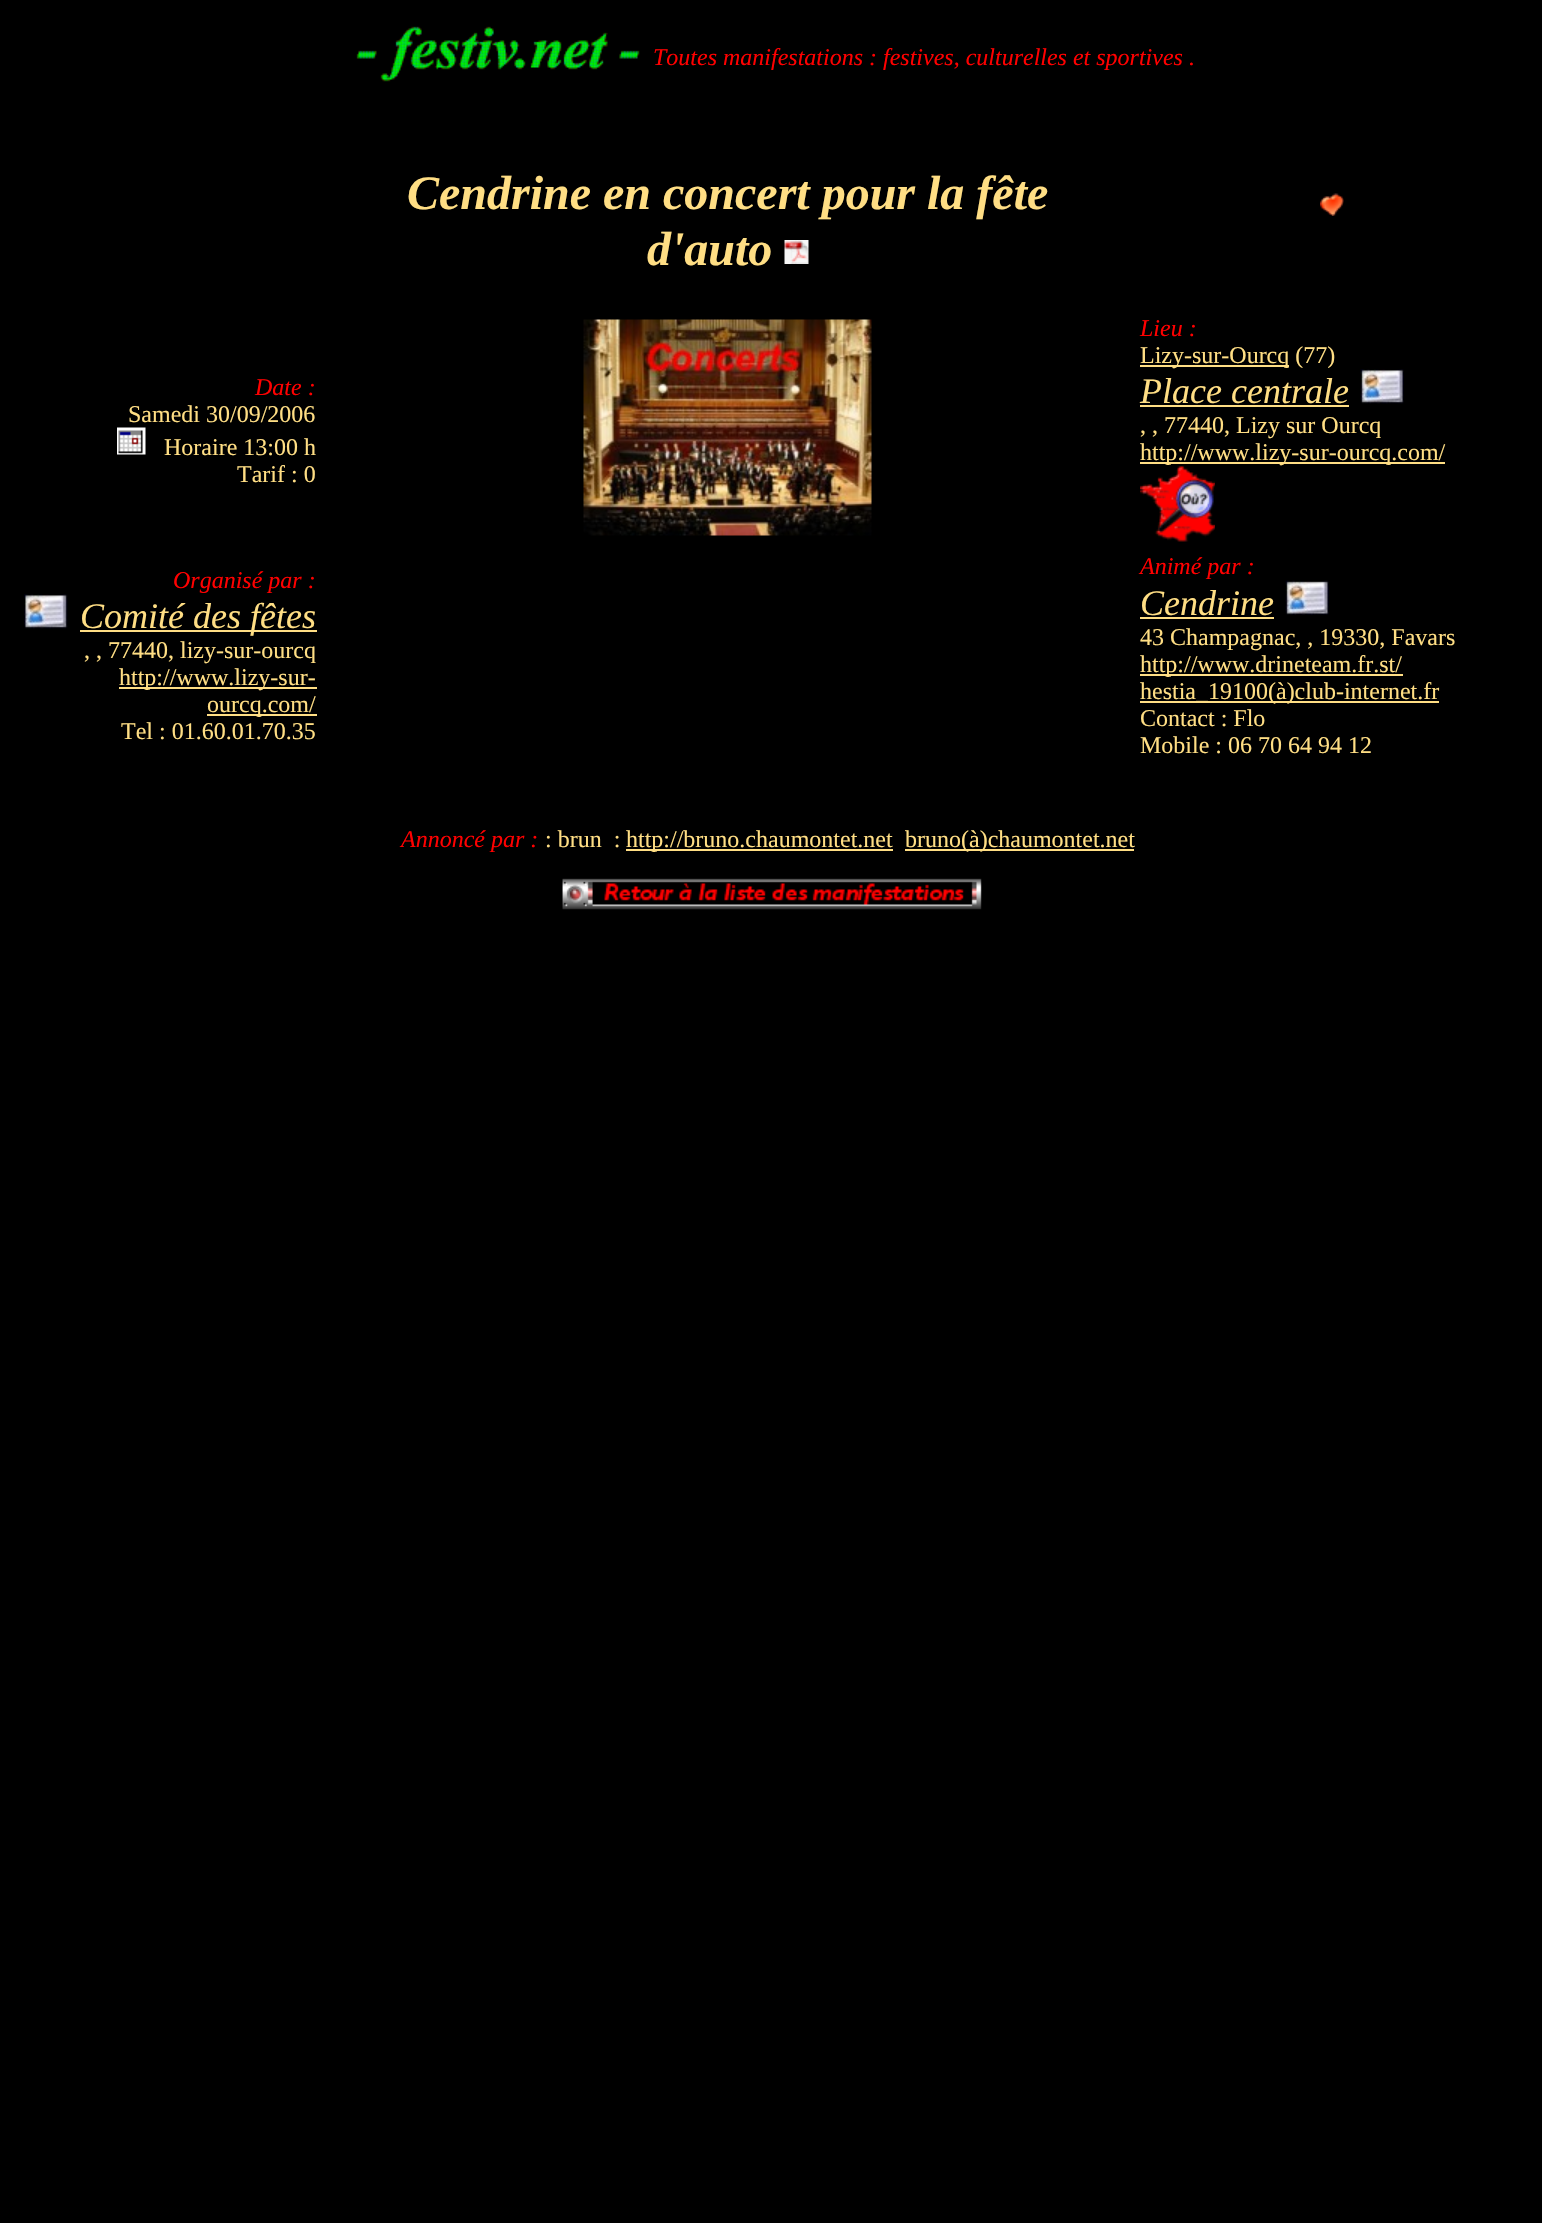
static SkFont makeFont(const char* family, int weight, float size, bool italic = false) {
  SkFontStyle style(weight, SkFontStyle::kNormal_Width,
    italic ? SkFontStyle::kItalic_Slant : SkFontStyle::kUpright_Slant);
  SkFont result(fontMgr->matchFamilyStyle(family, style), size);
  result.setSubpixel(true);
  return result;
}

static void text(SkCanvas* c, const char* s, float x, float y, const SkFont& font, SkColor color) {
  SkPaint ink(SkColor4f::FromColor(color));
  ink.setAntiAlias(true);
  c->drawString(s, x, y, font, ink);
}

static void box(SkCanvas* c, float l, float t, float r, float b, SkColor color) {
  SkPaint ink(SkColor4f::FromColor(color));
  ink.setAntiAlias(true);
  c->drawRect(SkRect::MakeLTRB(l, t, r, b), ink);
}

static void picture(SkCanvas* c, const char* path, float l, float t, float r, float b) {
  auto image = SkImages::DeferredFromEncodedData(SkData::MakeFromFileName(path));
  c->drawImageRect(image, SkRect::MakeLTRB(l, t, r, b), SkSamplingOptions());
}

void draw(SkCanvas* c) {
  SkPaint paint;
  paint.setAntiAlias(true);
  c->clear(0xff000000);
  picture(c, "img_01.png", 356, 26, 640, 82);
  SkFont face1 = makeFont("Liberation Serif", 400, 24, true);
  text(c, "Toutes manifestations : festives, culturelles et sportives .", 653, 65, face1, 0xffff0000);
  SkFont face2 = makeFont("Liberation Serif", 700, 48, true);
  text(c, "Cendrine en concert pour la fête", 407, 209, face2, 0xffffde84);
  text(c, "d'auto", 647, 265, face2, 0xffffde84);
  picture(c, "img_02.png", 784, 240, 809, 264);
  picture(c, "img_03.png", 1320, 193, 1344, 216);
  text(c, "Date :", 255, 395, face1, 0xffff0000);
  SkFont face3 = makeFont("Liberation Serif", 400, 24);
  text(c, "Samedi 30/09/2006", 128, 422, face3, 0xffffde84);
  picture(c, "img_04.png", 117, 427, 146, 455);
  text(c, "Horaire 13:00 h", 164, 455, face3, 0xffffde84);
  text(c, "Tarif : 0", 237, 482, face3, 0xffffde84);
  picture(c, "img_05.png", 583, 319, 872, 536);
  text(c, "Lieu :", 1140, 336, face1, 0xffff0000);
  box(c, 1140, 365, 1289, 367, 0xffffde84);
  text(c, "Lizy-sur-Ourcq (77)", 1140, 363, face3, 0xffffde84);
  SkFont face4 = makeFont("Liberation Serif", 400, 36, true);
  text(c, "Place centrale", 1140, 403, face4, 0xffffde84);
  box(c, 1140, 405, 1349, 407, 0xffffde84);
  picture(c, "img_06.png", 1360, 369, 1404, 404);
  text(c, ", , 77440, Lizy sur Ourcq", 1140, 433, face3, 0xffffde84);
  box(c, 1140, 462, 1445, 464, 0xffffde84);
  text(c, "http://www.lizy-sur-ourcq.com/", 1140, 460, face3, 0xffffde84);
  picture(c, "img_07.png", 1140, 466, 1215, 542);
  text(c, "Organisé par :", 173, 588, face1, 0xffff0000);
  picture(c, "img_08.png", 24, 594, 68, 629);
  box(c, 80, 630, 317, 632, 0xffffde84);
  text(c, "Comité des fêtes", 80, 628, face4, 0xffffde84);
  text(c, ", , 77440, lizy-sur-ourcq", 84, 658, face3, 0xffffde84);
  box(c, 119, 687, 317, 689, 0xffffde84);
  text(c, "http://www.lizy-sur-", 119, 685, face3, 0xffffde84);
  box(c, 207, 714, 317, 716, 0xffffde84);
  text(c, "ourcq.com/", 207, 712, face3, 0xffffde84);
  text(c, "Tel : 01.60.01.70.35", 121, 739, face3, 0xffffde84);
  text(c, "Animé par :", 1140, 574, face1, 0xffff0000);
  text(c, "Cendrine", 1140, 615, face4, 0xffffde84);
  box(c, 1140, 617, 1274, 619, 0xffffde84);
  picture(c, "img_09.png", 1285, 580, 1329, 615);
  text(c, "43 Champagnac, , 19330, Favars", 1140, 645, face3, 0xffffde84);
  box(c, 1140, 674, 1403, 676, 0xffffde84);
  text(c, "http://www.drineteam.fr.st/", 1140, 672, face3, 0xffffde84);
  box(c, 1140, 701, 1439, 703, 0xffffde84);
  text(c, "hestia_19100(à)club-internet.fr", 1140, 699, face3, 0xffffde84);
  text(c, "Contact : Flo", 1140, 726, face3, 0xffffde84);
  text(c, "Mobile : 06 70 64 94 12", 1140, 753, face3, 0xffffde84);
  text(c, "Annoncé par :", 401, 847, face1, 0xffff0000);
  text(c, ": brun  :", 545, 847, face3, 0xffffde84);
  box(c, 626, 849, 893, 851, 0xffffde84);
  text(c, "http://bruno.chaumontet.net", 626, 847, face3, 0xffffde84);
  box(c, 905, 849, 1134, 851, 0xffffde84);
  text(c, "bruno(à)chaumontet.net", 905, 847, face3, 0xffffde84);
  picture(c, "img_10.png", 562, 878, 982, 910);
}
